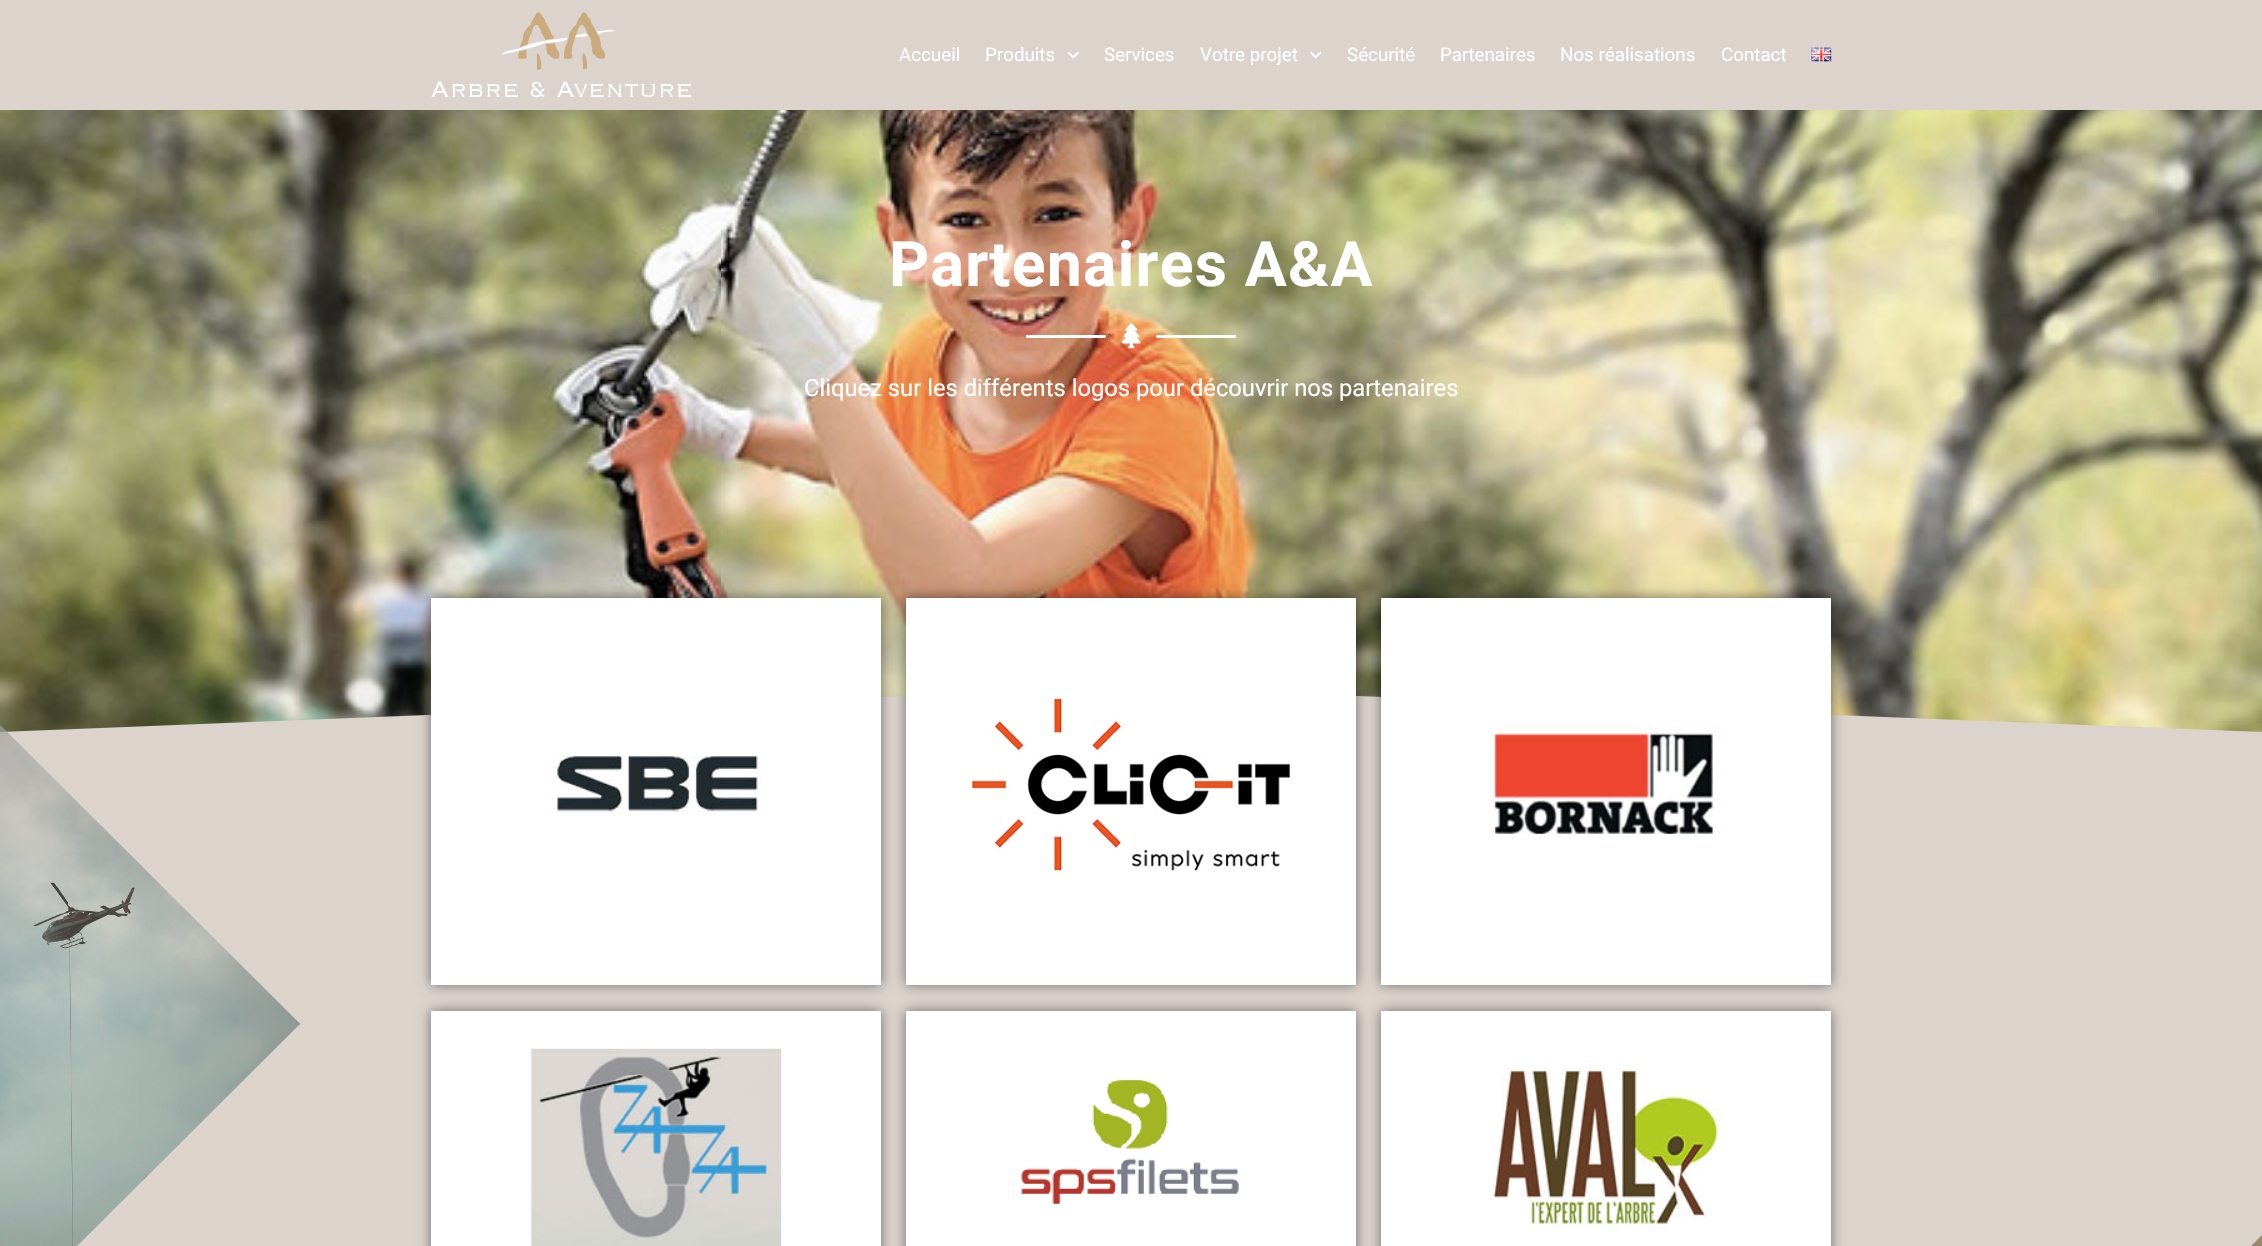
static SkFont makeFont(const char* family, int weight, float size, bool italic = false) {
  SkFontStyle style(weight, SkFontStyle::kNormal_Width,
    italic ? SkFontStyle::kItalic_Slant : SkFontStyle::kUpright_Slant);
  SkFont result(fontMgr->matchFamilyStyle(family, style), size);
  result.setSubpixel(true);
  return result;
}

static void text(SkCanvas* c, const char* s, float x, float y, const SkFont& font, SkColor color) {
  SkPaint ink(SkColor4f::FromColor(color));
  ink.setAntiAlias(true);
  c->drawString(s, x, y, font, ink);
}

static void spacedText(SkCanvas* c, const char* s, float x, float y, const SkFont& font, const SkPaint& ink, float letter, float word) {
  std::vector<SkGlyphID> glyphs(font.countText(s, strlen(s), SkTextEncoding::kUTF8));
  std::vector<float> xs(glyphs.size());
  font.textToGlyphs(s, strlen(s), SkTextEncoding::kUTF8, glyphs);
  font.getXPos(glyphs, xs, x);
  float extra = 0;
  for (size_t i = 0; i < glyphs.size(); i++) {
    xs[i] += extra;
    extra += letter + word * (glyphs[i] == font.unicharToGlyph(' '));
  }
  c->drawTextBlob(SkTextBlob::MakeFromPosHGlyphs(glyphs, xs, y, font), 0, 0, ink);
}

static void box(SkCanvas* c, float l, float t, float r, float b, SkColor color) {
  SkPaint ink(SkColor4f::FromColor(color));
  ink.setAntiAlias(true);
  c->drawRect(SkRect::MakeLTRB(l, t, r, b), ink);
}

static void picture(SkCanvas* c, const char* path, float l, float t, float r, float b) {
  auto image = SkImages::DeferredFromEncodedData(SkData::MakeFromFileName(path));
  c->drawImageRect(image, SkRect::MakeLTRB(l, t, r, b), SkSamplingOptions());
}

void draw(SkCanvas* c) {
  SkPaint paint;
  paint.setAntiAlias(true);
  c->clear(0xffdcd3cc);
  picture(c, "img_01.png", 431, 12, 692, 98);
  SkFont face1 = makeFont("Roboto", 400, 18.75f);
  text(c, "Accueil", 899, 61, face1, 0xffffffff);
  text(c, "Produits", 985, 61, face1, 0xffffffff);
  picture(c, "img_02.png", 1067, 51, 1079, 59);
  text(c, "Services", 1104, 61, face1, 0xffffffff);
  text(c, "Votre projet", 1200, 61, face1, 0xffffffff);
  picture(c, "img_03.png", 1310, 51, 1322, 59);
  text(c, "Sécurité", 1347, 61, face1, 0xffffffff);
  text(c, "Partenaires", 1440, 61, face1, 0xffffffff);
  text(c, "Nos réalisations", 1560, 61, face1, 0xffffffff);
  text(c, "Contact", 1721, 61, face1, 0xffffffff);
  picture(c, "img_04.png", 1811, 47, 1832, 62);
  picture(c, "img_05.png", 0, 110, 2262, 732);
  SkFont face2 = makeFont("Roboto", 700, 62.5f);
  paint.setColor(0xffffffff);
  spacedText(c, "Partenaires A&A", 889, 286, face2, paint, 1.25f, 0);
  box(c, 1026, 335, 1106, 338, 0xffffffff);
  picture(c, "img_06.png", 1121, 323, 1141, 349);
  box(c, 1156, 335, 1236, 338, 0xffffffff);
  SkFont face3 = makeFont("Roboto", 400, 23.75f);
  text(c, "Cliquez sur les différents logos pour découvrir nos partenaires", 804, 396, face3, 0xffffffff);
  paint.setColor(0xffdcd3cc);
  c->drawPath(SkPathBuilder().moveTo(1131, 687).lineTo(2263, 732).lineTo(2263, 735).lineTo(-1, 735).lineTo(-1, 732).close().detach(), paint);
  picture(c, "img_07.png", 0, 725, 300, 1246);
  paint.setColor(0x80000000);
  paint.setMaskFilter(SkMaskFilter::MakeBlur(kNormal_SkBlurStyle, 6));
  c->drawRect(SkRect::MakeLTRB(431, 598, 881, 985), paint);
  paint.setMaskFilter(nullptr);
  box(c, 431, 598, 881, 985, 0xffffffff);
  picture(c, "img_08.png", 551, 755, 761, 815);
  paint.setMaskFilter(SkMaskFilter::MakeBlur(kNormal_SkBlurStyle, 6));
  c->drawRect(SkRect::MakeLTRB(906, 598, 1356, 985), paint);
  paint.setMaskFilter(nullptr);
  box(c, 906, 598, 1356, 985, 0xffffffff);
  picture(c, "img_09.png", 971, 698, 1291, 871);
  paint.setMaskFilter(SkMaskFilter::MakeBlur(kNormal_SkBlurStyle, 6));
  c->drawRect(SkRect::MakeLTRB(1381, 598, 1831, 985), paint);
  paint.setMaskFilter(nullptr);
  box(c, 1381, 598, 1831, 985, 0xffffffff);
  picture(c, "img_10.png", 1491, 725, 1721, 835);
  paint.setMaskFilter(SkMaskFilter::MakeBlur(kNormal_SkBlurStyle, 6));
  c->drawRect(SkRect::MakeLTRB(431, 1011, 881, 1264), paint);
  paint.setMaskFilter(nullptr);
  box(c, 431, 1011, 881, 1246, 0xffffffff);
  picture(c, "img_11.png", 531, 1048, 782, 1246);
  paint.setMaskFilter(SkMaskFilter::MakeBlur(kNormal_SkBlurStyle, 6));
  c->drawRect(SkRect::MakeLTRB(906, 1011, 1356, 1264), paint);
  paint.setMaskFilter(nullptr);
  box(c, 906, 1011, 1356, 1246, 0xffffffff);
  picture(c, "img_12.png", 1021, 1079, 1239, 1204);
  paint.setMaskFilter(SkMaskFilter::MakeBlur(kNormal_SkBlurStyle, 6));
  c->drawRect(SkRect::MakeLTRB(1381, 1011, 1831, 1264), paint);
  paint.setMaskFilter(nullptr);
  box(c, 1381, 1011, 1831, 1246, 0xffffffff);
  picture(c, "img_13.png", 1491, 1069, 1722, 1229);
  picture(c, "img_14.png", 2251, 1235, 2262, 1246);
}
